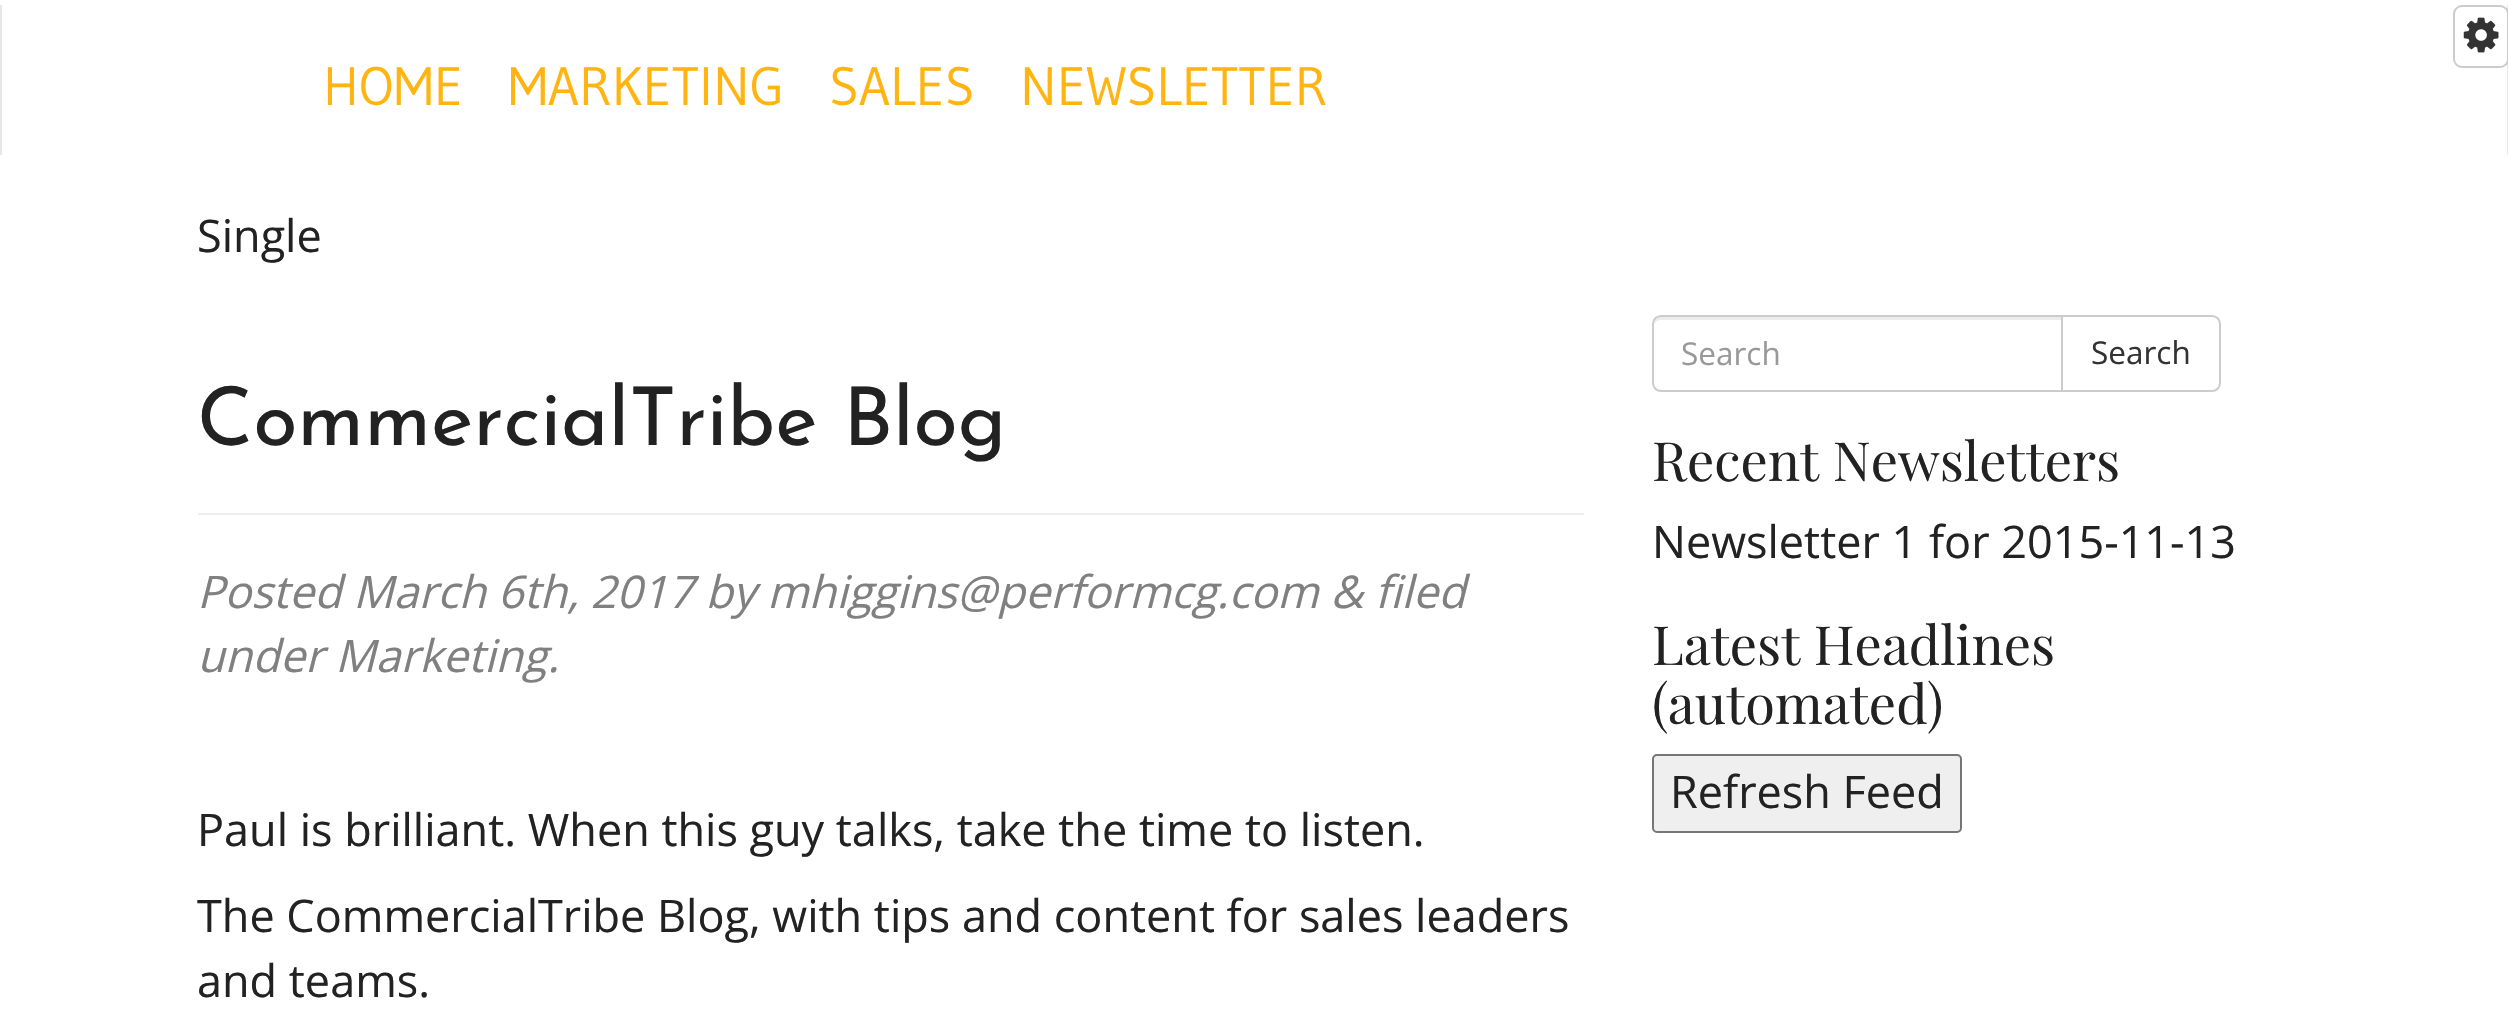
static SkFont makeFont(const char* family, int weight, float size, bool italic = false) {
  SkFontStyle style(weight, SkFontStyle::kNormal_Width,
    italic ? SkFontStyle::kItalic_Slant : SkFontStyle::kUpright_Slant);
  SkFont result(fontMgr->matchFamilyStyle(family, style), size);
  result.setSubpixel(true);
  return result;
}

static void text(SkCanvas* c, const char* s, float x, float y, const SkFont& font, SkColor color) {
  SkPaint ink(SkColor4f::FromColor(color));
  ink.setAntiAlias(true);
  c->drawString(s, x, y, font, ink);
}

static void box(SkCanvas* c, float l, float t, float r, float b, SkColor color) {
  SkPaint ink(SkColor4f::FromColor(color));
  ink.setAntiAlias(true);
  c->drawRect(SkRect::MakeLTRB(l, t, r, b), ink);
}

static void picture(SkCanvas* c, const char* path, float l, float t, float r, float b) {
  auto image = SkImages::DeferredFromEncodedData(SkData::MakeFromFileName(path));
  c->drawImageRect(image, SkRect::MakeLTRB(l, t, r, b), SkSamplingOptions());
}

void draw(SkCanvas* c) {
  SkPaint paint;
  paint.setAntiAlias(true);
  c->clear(0xffffffff);
  box(c, 2507, 5, 2508, 155, 0xffe7e7e7);
  paint.setColor(0xffffffff);
  c->drawRoundRect(SkRect::MakeLTRB(2454, 6, 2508, 67), 8, 8, paint);
  paint.setStyle(SkPaint::kStroke_Style);
  paint.setStrokeWidth(2);
  paint.setColor(0xffcccccc);
  c->drawRoundRect(SkRect::MakeLTRB(2454, 6, 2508, 67), 8, 8, paint);
  picture(c, "img_01.png", 2463, 17, 2499, 53);
  box(c, 0, 5, 2, 155, 0xffe7e7e7);
  SkFont face1 = makeFont("Gudea", 400, 54);
  text(c, "HOME", 323, 105, face1, 0xffffb411);
  text(c, "MARKETING", 508, 105, face1, 0xffffb411);
  text(c, "SALES", 829, 105, face1, 0xffffb411);
  text(c, "NEWSLETTER", 1020, 105, face1, 0xffffb411);
  SkFont face2 = makeFont("Open Sans", 400, 45);
  text(c, "Single", 197, 252, face2, 0xff222222);
  box(c, 198, 513, 1584, 515, 0xffeeeeee);
  SkFont face3 = makeFont("Josefin Sans", 100, 81);
  text(c, "CommercialTribe Blog", 197, 445, face3, 0xff222222);
  SkFont face4 = makeFont("Open Sans", 400, 45, true);
  text(c, "Posted March 6th, 2017 by mhiggins@performcg.com & filed", 197, 608, face4, 0xff808080);
  text(c, "under Marketing.", 197, 672, face4, 0xff808080);
  text(c, "Paul is brilliant. When this guy talks, take the time to listen.", 197, 846, face2, 0xff222222);
  text(c, "The CommercialTribe Blog, with tips and content for sales leaders", 197, 932, face2, 0xff222222);
  text(c, "and teams.", 197, 997, face2, 0xff222222);
  c->drawPath(SkPathBuilder().moveTo(2062, 316).lineTo(2212, 316).cubicTo(2216.5f, 316, 2220, 319.5f, 2220, 324).lineTo(2220, 383).cubicTo(2220, 387.5f, 2216.5f, 391, 2212, 391).lineTo(2062, 391).close().detach(), paint);
  paint.setStyle(SkPaint::kFill_Style);
  paint.setColor(0xffffffff);
  c->drawPath(SkPathBuilder().moveTo(1661, 315).lineTo(2063, 315).lineTo(2063, 392).lineTo(1661, 392).cubicTo(1656, 392, 1652, 388, 1652, 383).lineTo(1652, 324).cubicTo(1652, 319, 1656, 315, 1661, 315).close().detach(), paint);
  paint.setColor(0xffececec);
  c->drawPath(SkPathBuilder().moveTo(1660, 320).lineTo(2061, 320).lineTo(2061, 317).lineTo(1661, 317).cubicTo(1656, 317, 1654, 322, 1654, 326).cubicTo(1654, 323, 1657, 320, 1660, 320).close().detach(), paint);
  paint.setStyle(SkPaint::kStroke_Style);
  paint.setColor(0xffcccccc);
  c->drawPath(SkPathBuilder().moveTo(1661, 316).lineTo(2062, 316).lineTo(2062, 391).lineTo(1661, 391).cubicTo(1656.5f, 391, 1653, 387.5f, 1653, 383).lineTo(1653, 324).cubicTo(1653, 319.5f, 1656.5f, 316, 1661, 316).close().detach(), paint);
  SkFont face5 = makeFont("Open Sans", 400, 31.5f);
  text(c, "Search", 1681, 365, face5, 0xff999999);
  text(c, "Search", 2091, 364, face5, 0xff333333);
  SkFont face6 = makeFont("Playfair Display", 400, 54);
  text(c, "Recent Newsletters", 1652, 481, face6, 0xff222222);
  text(c, "Newsletter 1 for 2015-11-13", 1652, 558, face2, 0xff222222);
  text(c, "Latest Headlines", 1652, 665, face6, 0xff222222);
  text(c, "(automated)", 1652, 724, face6, 0xff222222);
  paint.setStyle(SkPaint::kFill_Style);
  paint.setColor(0xffefefef);
  c->drawRoundRect(SkRect::MakeLTRB(1653, 755, 1961, 832), 4, 4, paint);
  paint.setStyle(SkPaint::kStroke_Style);
  paint.setColor(0xff767676);
  c->drawRoundRect(SkRect::MakeLTRB(1653, 755, 1961, 832), 4, 4, paint);
  text(c, "Refresh Feed", 1670, 808, face2, 0xff222222);
}
